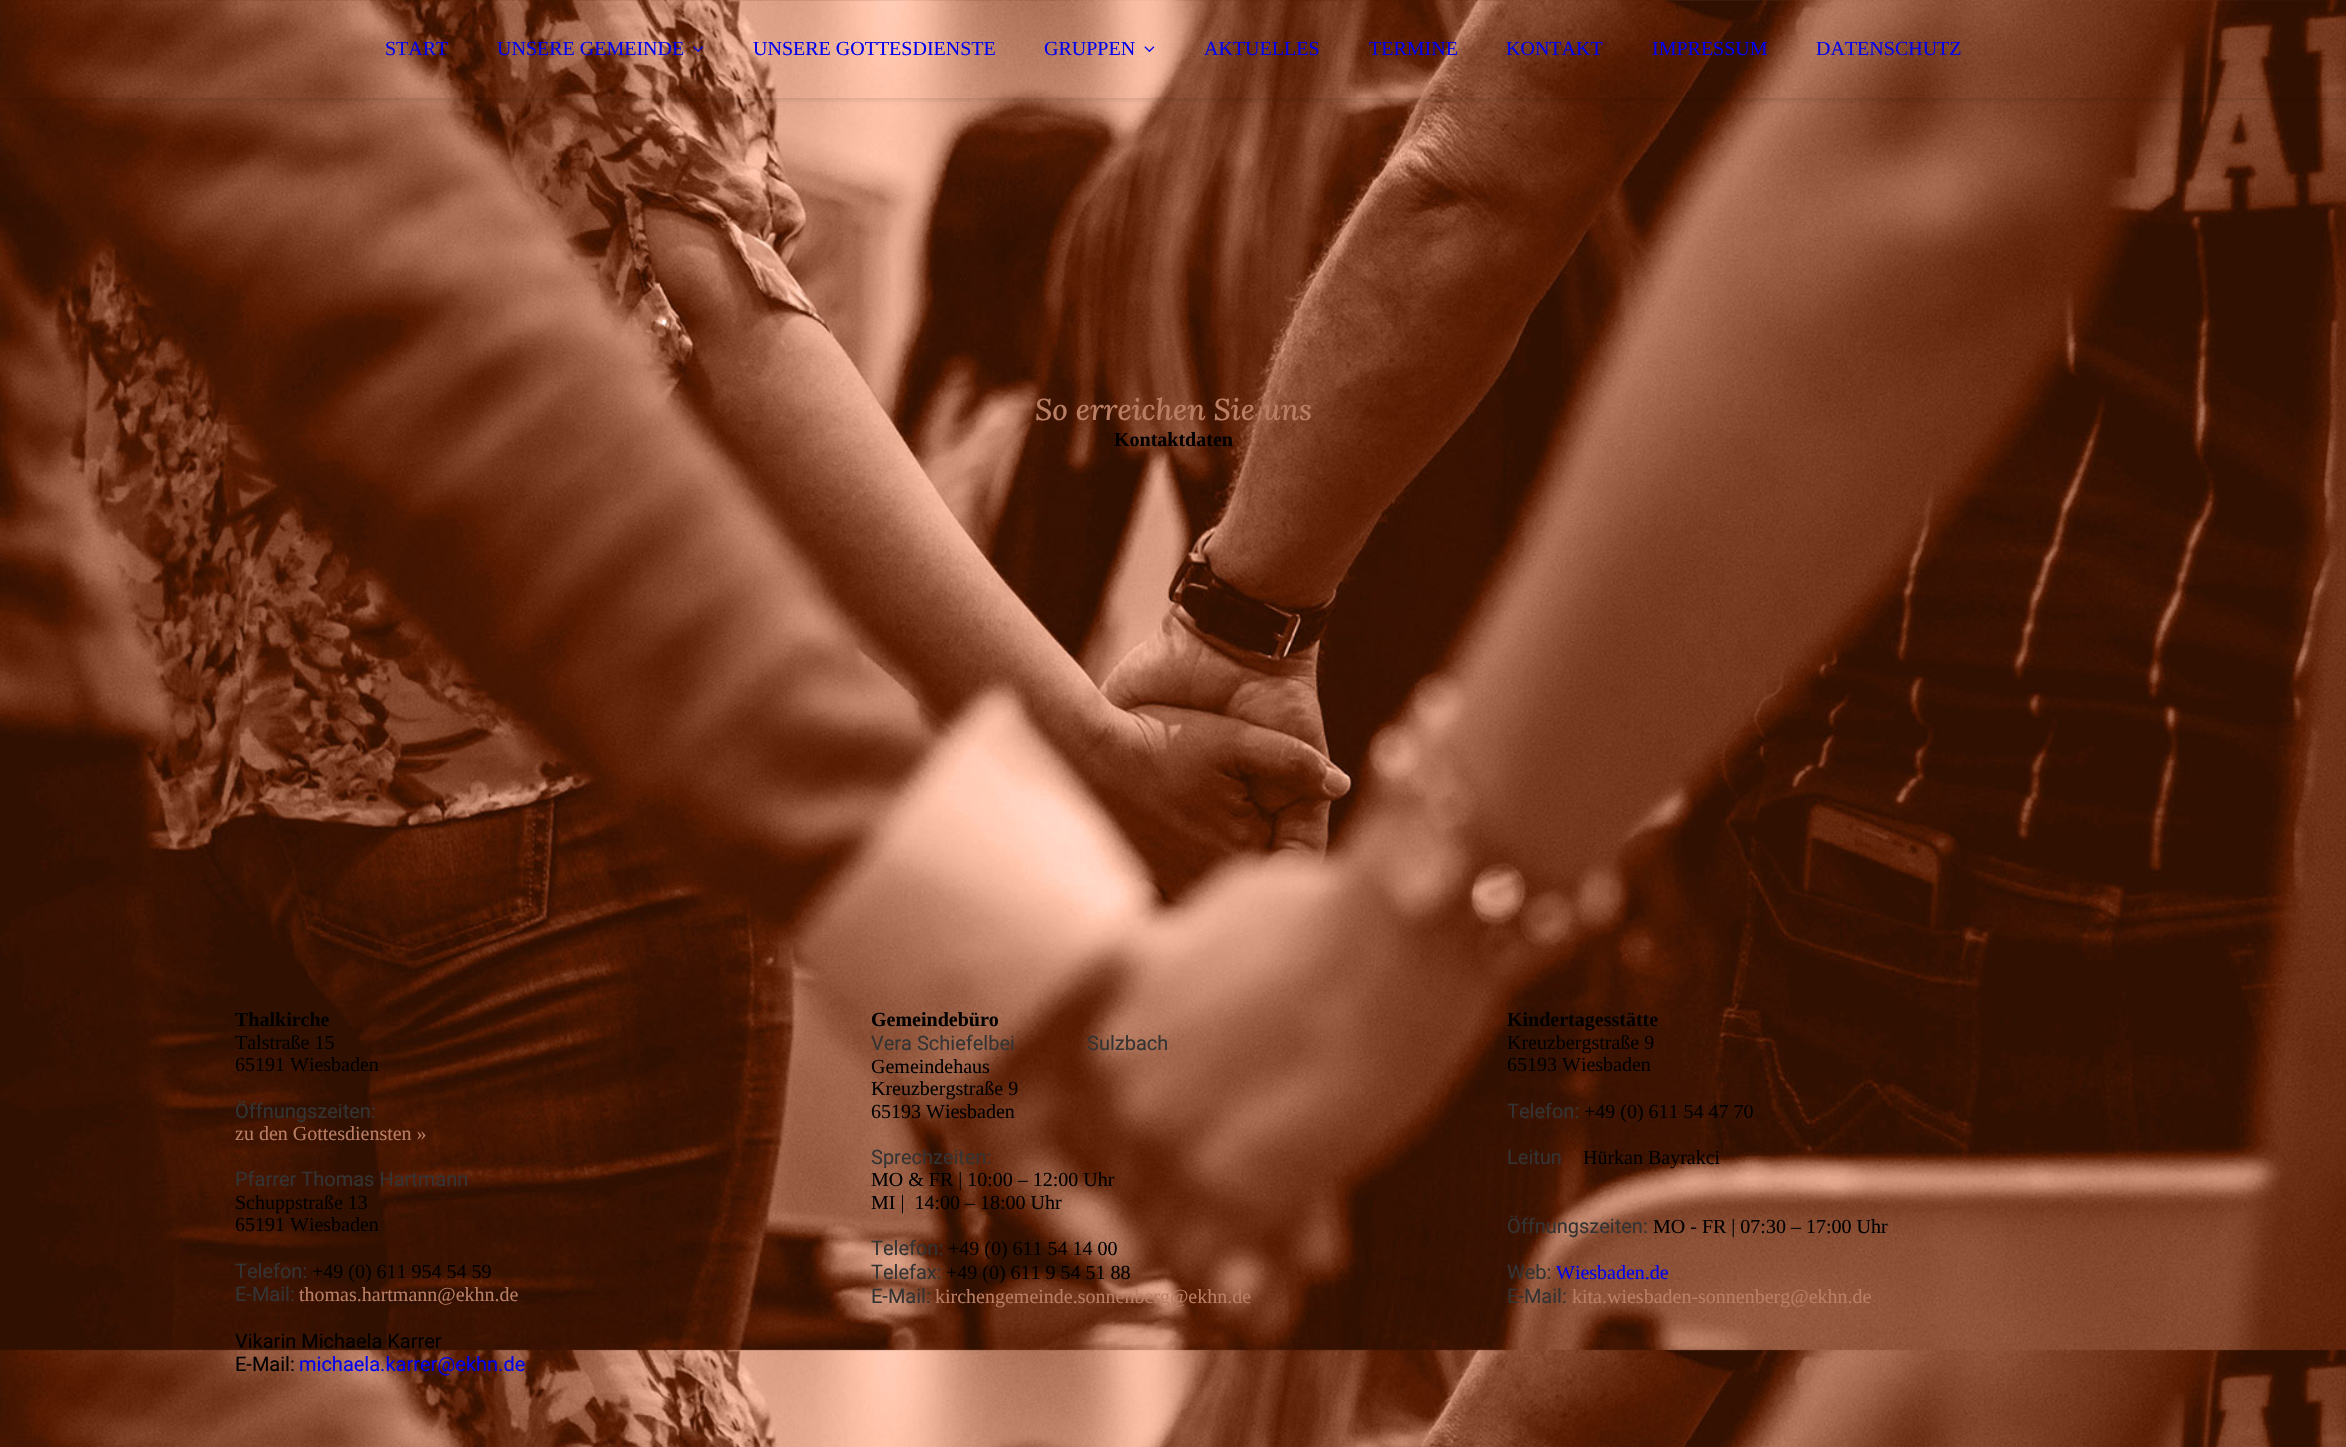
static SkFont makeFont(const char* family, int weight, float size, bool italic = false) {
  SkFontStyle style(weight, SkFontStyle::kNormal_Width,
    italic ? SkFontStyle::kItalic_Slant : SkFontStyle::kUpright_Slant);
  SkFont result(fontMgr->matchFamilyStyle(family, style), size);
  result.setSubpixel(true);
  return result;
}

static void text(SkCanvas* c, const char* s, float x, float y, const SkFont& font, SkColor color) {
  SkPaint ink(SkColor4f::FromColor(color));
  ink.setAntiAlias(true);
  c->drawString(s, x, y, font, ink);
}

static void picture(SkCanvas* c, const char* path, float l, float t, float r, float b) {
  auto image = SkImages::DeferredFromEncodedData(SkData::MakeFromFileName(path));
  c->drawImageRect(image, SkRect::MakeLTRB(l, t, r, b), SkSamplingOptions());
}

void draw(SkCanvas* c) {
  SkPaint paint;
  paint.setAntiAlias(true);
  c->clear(0xffffffff);
  picture(c, "img_01.png", 0, 0, 2346, 1447);
  c->save();
  c->clipPath(SkPathBuilder(SkPathFillType::kEvenOdd).moveTo(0, 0).lineTo(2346, 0).lineTo(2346, 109).lineTo(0, 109).close().moveTo(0, 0).lineTo(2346, 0).lineTo(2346, 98).lineTo(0, 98).close().detach(), true);
  paint.setColor(0x1f000000);
  paint.setMaskFilter(SkMaskFilter::MakeBlur(kNormal_SkBlurStyle, 2.5f));
  c->drawRect(SkRect::MakeLTRB(0, 3, 2346, 100), paint);
  paint.setMaskFilter(nullptr);
  c->restore();
  SkFont face1 = makeFont("Liberation Serif", 400, 20);
  text(c, "START", 385, 55, face1, 0xff0000ee);
  text(c, "UNSERE GEMEINDE", 497, 55, face1, 0xff0000ee);
  picture(c, "img_02.png", 693, 46, 703, 52);
  text(c, "UNSERE GOTTESDIENSTE", 753, 55, face1, 0xff0000ee);
  text(c, "GRUPPEN", 1044, 55, face1, 0xff0000ee);
  picture(c, "img_03.png", 1144, 46, 1155, 52);
  text(c, "AKTUELLES", 1204, 55, face1, 0xff0000ee);
  text(c, "TERMINE", 1369, 55, face1, 0xff0000ee);
  text(c, "KONTAKT", 1506, 55, face1, 0xff0000ee);
  text(c, "IMPRESSUM", 1652, 55, face1, 0xff0000ee);
  text(c, "DATENSCHUTZ", 1816, 55, face1, 0xff0000ee);
  SkFont face2 = makeFont("Lora", 500, 30, true);
  text(c, "So erreichen Sie uns", 1035, 420, face2, 0xffb97d63);
  SkFont face3 = makeFont("Liberation Serif", 700, 20);
  text(c, "Kontaktdaten", 1114, 446, face3, 0xff000000);
  text(c, "Thalkirche", 235, 1026, face3, 0xff000000);
  text(c, "Talstraße 15", 235, 1049, face1, 0xff000000);
  text(c, "65191 Wiesbaden", 235, 1071, face1, 0xff000000);
  SkFont face4 = makeFont("Roboto", 400, 20);
  text(c, "Öffnungszeiten:", 235, 1118, face4, 0xff333333);
  text(c, "zu den Gottesdiensten »", 235, 1140, face1, 0xffb97d63);
  text(c, "Pfarrer Thomas Hartmann", 235, 1186, face4, 0xff333333);
  text(c, "Schuppstraße 13", 235, 1209, face1, 0xff000000);
  text(c, "65191 Wiesbaden", 235, 1231, face1, 0xff000000);
  text(c, "Telefon:", 235, 1278, face4, 0xff333333);
  text(c, "+49 (0) 611 954 54 59", 312, 1278, face1, 0xff000000);
  text(c, "E-Mail:", 235, 1301, face4, 0xff333333);
  text(c, "thomas.hartmann@ekhn.de", 299, 1301, face1, 0xffb97d63);
  text(c, "Vikarin Michaela Karrer", 235, 1348, face4, 0xff000000);
  text(c, "E-Mail:", 235, 1371, face4, 0xff000000);
  text(c, "michaela.karrer@ekhn.de", 299, 1371, face4, 0xff0000ee);
  text(c, "Gemeindebüro", 871, 1026, face3, 0xff000000);
  text(c, "Vera Schiefelbei", 871, 1050, face4, 0xff333333);
  text(c, "Sulzbach", 1087, 1050, face4, 0xff333333);
  text(c, "Gemeindehaus", 871, 1073, face1, 0xff000000);
  text(c, "Kreuzbergstraße 9", 871, 1095, face1, 0xff000000);
  text(c, "65193 Wiesbaden", 871, 1118, face1, 0xff000000);
  text(c, "Sprechzeiten:", 871, 1164, face4, 0xff333333);
  text(c, "MO & FR | 10:00 – 12:00 Uhr", 871, 1186, face1, 0xff000000);
  text(c, "MI |  14:00 – 18:00 Uhr", 871, 1209, face1, 0xff000000);
  text(c, "Telefon:", 871, 1255, face4, 0xff333333);
  text(c, "+49 (0) 611 54 14 00", 948, 1255, face1, 0xff000000);
  text(c, "Telefax:", 871, 1279, face4, 0xff333333);
  text(c, "+49 (0) 611 9 54 51 88", 946, 1279, face1, 0xff000000);
  text(c, "E-Mail:", 871, 1303, face4, 0xff333333);
  text(c, "kirchengemeinde.sonnenberg@ekhn.de", 935, 1303, face1, 0xffb97d63);
  text(c, "Kindertagesstätte", 1507, 1026, face3, 0xff000000);
  text(c, "Kreuzbergstraße 9", 1507, 1049, face1, 0xff000000);
  text(c, "65193 Wiesbaden", 1507, 1071, face1, 0xff000000);
  text(c, "Telefon:", 1507, 1118, face4, 0xff333333);
  text(c, "+49 (0) 611 54 47 70", 1584, 1118, face1, 0xff000000);
  text(c, "Leitun", 1507, 1164, face4, 0xff333333);
  text(c, "Hürkan Bayrakci", 1583, 1164, face1, 0xff000000);
  text(c, "Öffnungszeiten:", 1507, 1233, face4, 0xff333333);
  text(c, "MO - FR | 07:30 – 17:00 Uhr", 1653, 1233, face1, 0xff000000);
  text(c, "Web:", 1507, 1279, face4, 0xff333333);
  text(c, "Wiesbaden.de", 1556, 1279, face1, 0xff0000ee);
  text(c, "E-Mail:", 1507, 1303, face4, 0xff333333);
  text(c, "kita.wiesbaden-sonnenberg@ekhn.de", 1572, 1303, face1, 0xffb97d63);
}
